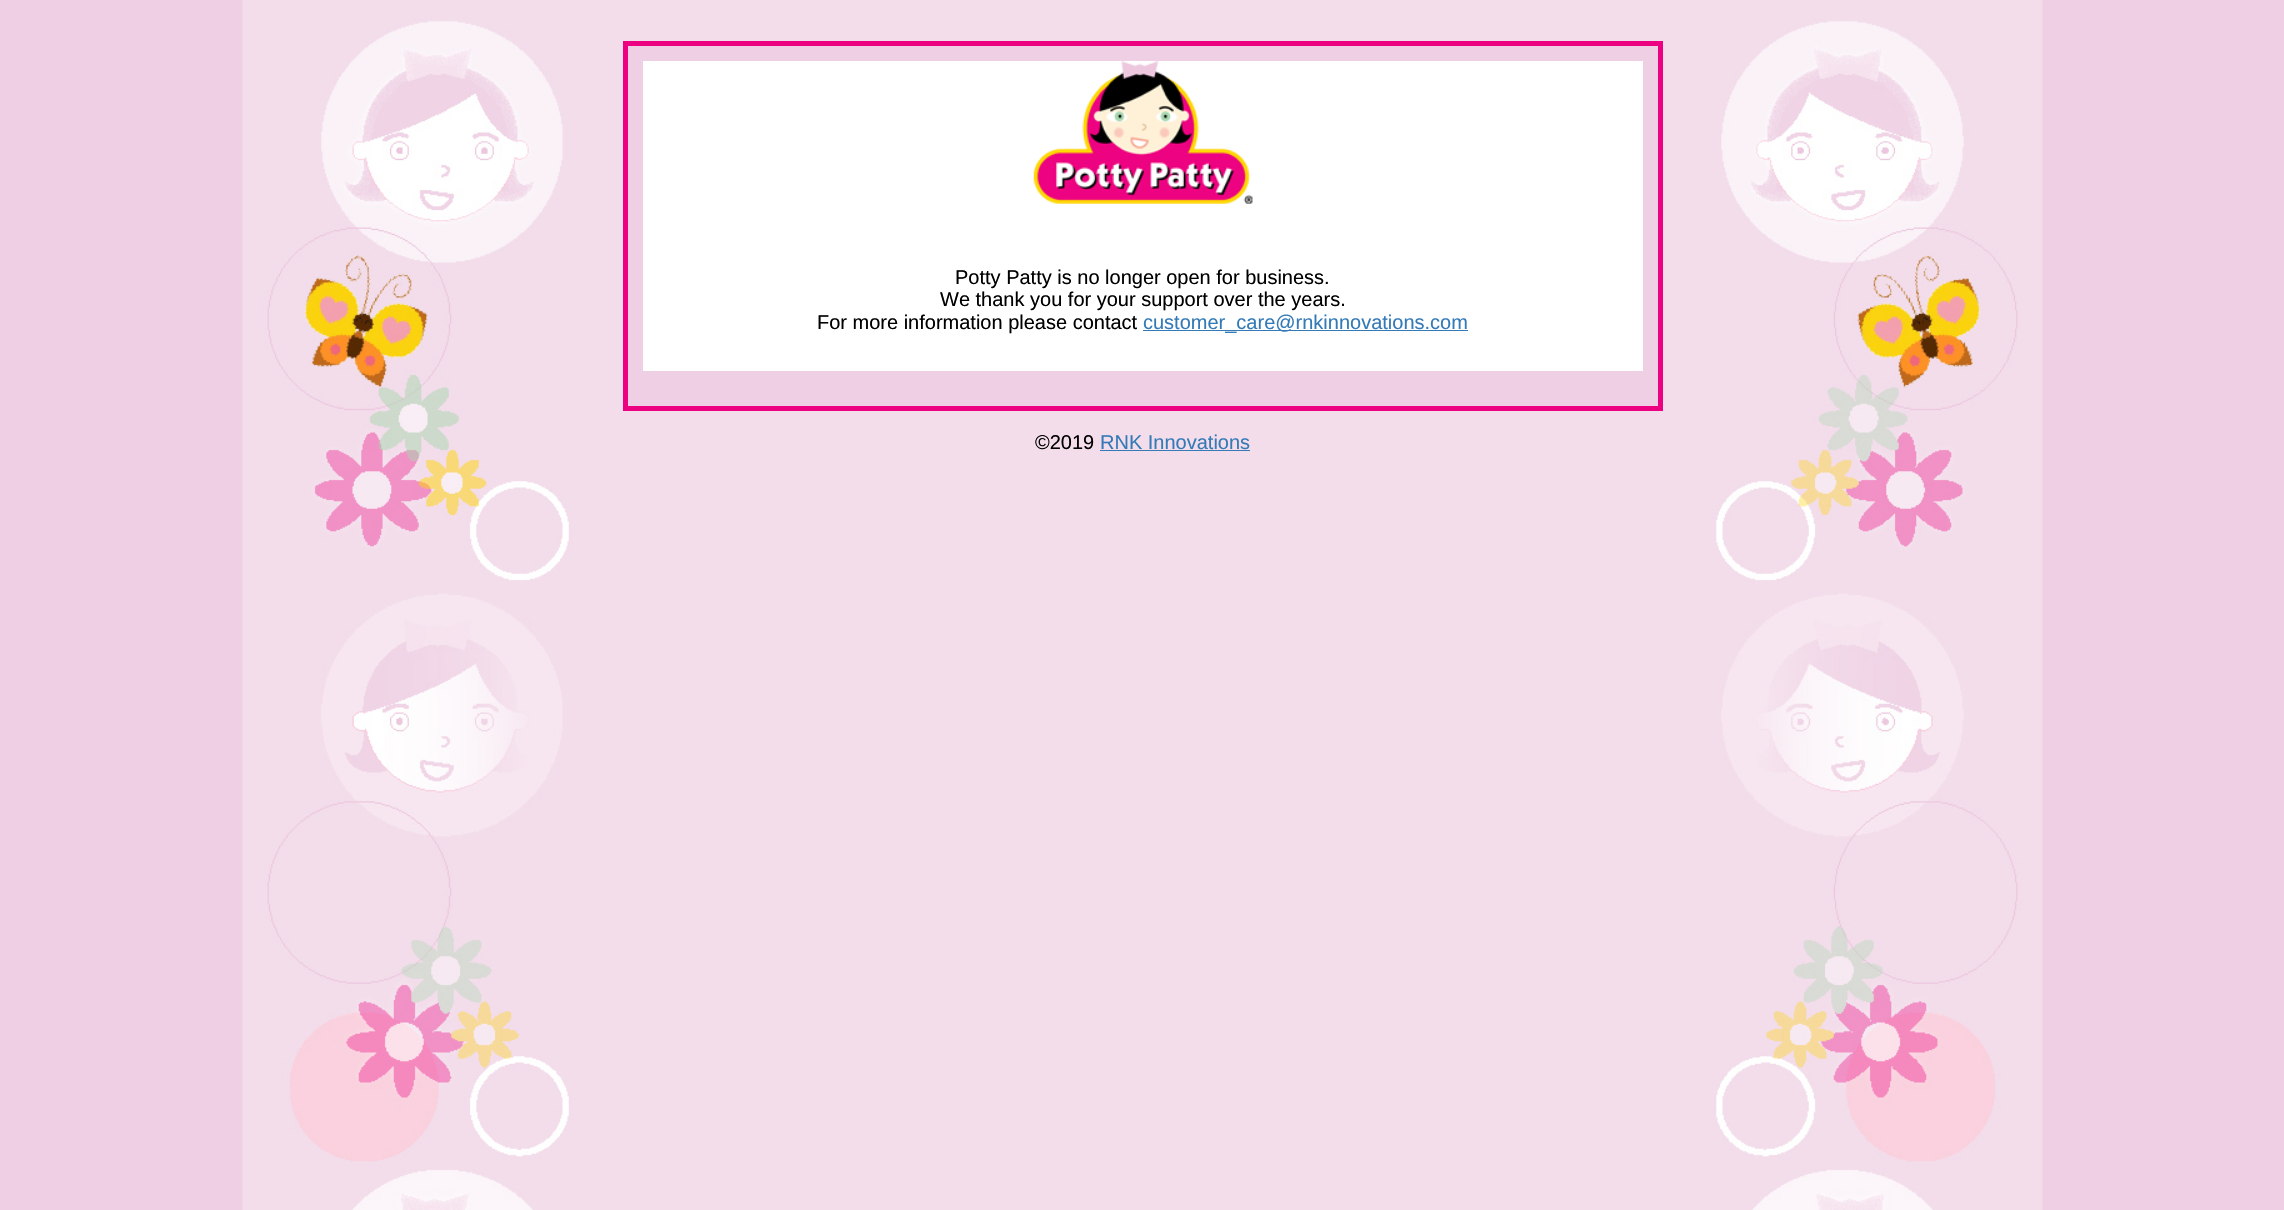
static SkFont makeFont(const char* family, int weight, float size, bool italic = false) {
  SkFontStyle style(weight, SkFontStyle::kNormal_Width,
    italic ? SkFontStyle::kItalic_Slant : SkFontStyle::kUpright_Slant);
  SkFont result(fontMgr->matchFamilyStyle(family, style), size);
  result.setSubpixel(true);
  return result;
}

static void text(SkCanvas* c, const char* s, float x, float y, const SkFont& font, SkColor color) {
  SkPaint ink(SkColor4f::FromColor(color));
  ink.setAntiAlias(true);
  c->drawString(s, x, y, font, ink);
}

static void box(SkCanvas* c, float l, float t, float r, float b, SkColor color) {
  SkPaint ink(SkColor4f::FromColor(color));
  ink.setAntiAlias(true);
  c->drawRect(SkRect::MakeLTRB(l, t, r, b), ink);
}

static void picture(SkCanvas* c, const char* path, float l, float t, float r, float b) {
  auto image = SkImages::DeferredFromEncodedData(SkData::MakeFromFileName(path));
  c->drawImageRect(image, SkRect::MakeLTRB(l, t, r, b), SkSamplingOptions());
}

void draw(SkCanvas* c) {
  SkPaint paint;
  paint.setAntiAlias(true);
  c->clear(0xffefcfe3);
  picture(c, "img_01.png", 242, 0, 2043, 1210);
  paint.setColor(0xffefcfe3);
  c->drawRect(SkRect::MakeLTRB(625.5f, 43.5f, 1660.5f, 408.5f), paint);
  paint.setStyle(SkPaint::kStroke_Style);
  paint.setStrokeWidth(5);
  paint.setColor(0xffec0281);
  c->drawRect(SkRect::MakeLTRB(625.5f, 43.5f, 1660.5f, 408.5f), paint);
  box(c, 643, 61, 1643, 371, 0xffffffff);
  picture(c, "img_02.png", 1033, 61, 1253, 204);
  SkFont face1 = makeFont("Liberation Sans", 400, 20);
  text(c, "Potty Patty is no longer open for business.", 955, 284, face1, 0xff000000);
  text(c, "We thank you for your support over the years.", 940, 306, face1, 0xff000000);
  text(c, "For more information please contact", 817, 329, face1, 0xff000000);
  box(c, 1143, 330, 1468, 331, 0xff337ab7);
  text(c, "customer_care@rnkinnovations.com", 1143, 329, face1, 0xff337ab7);
  text(c, "©2019", 1035, 449, face1, 0xff000000);
  text(c, "RNK Innovations", 1100, 449, face1, 0xff337ab7);
  box(c, 1100, 450, 1250, 451, 0xff337ab7);
}
